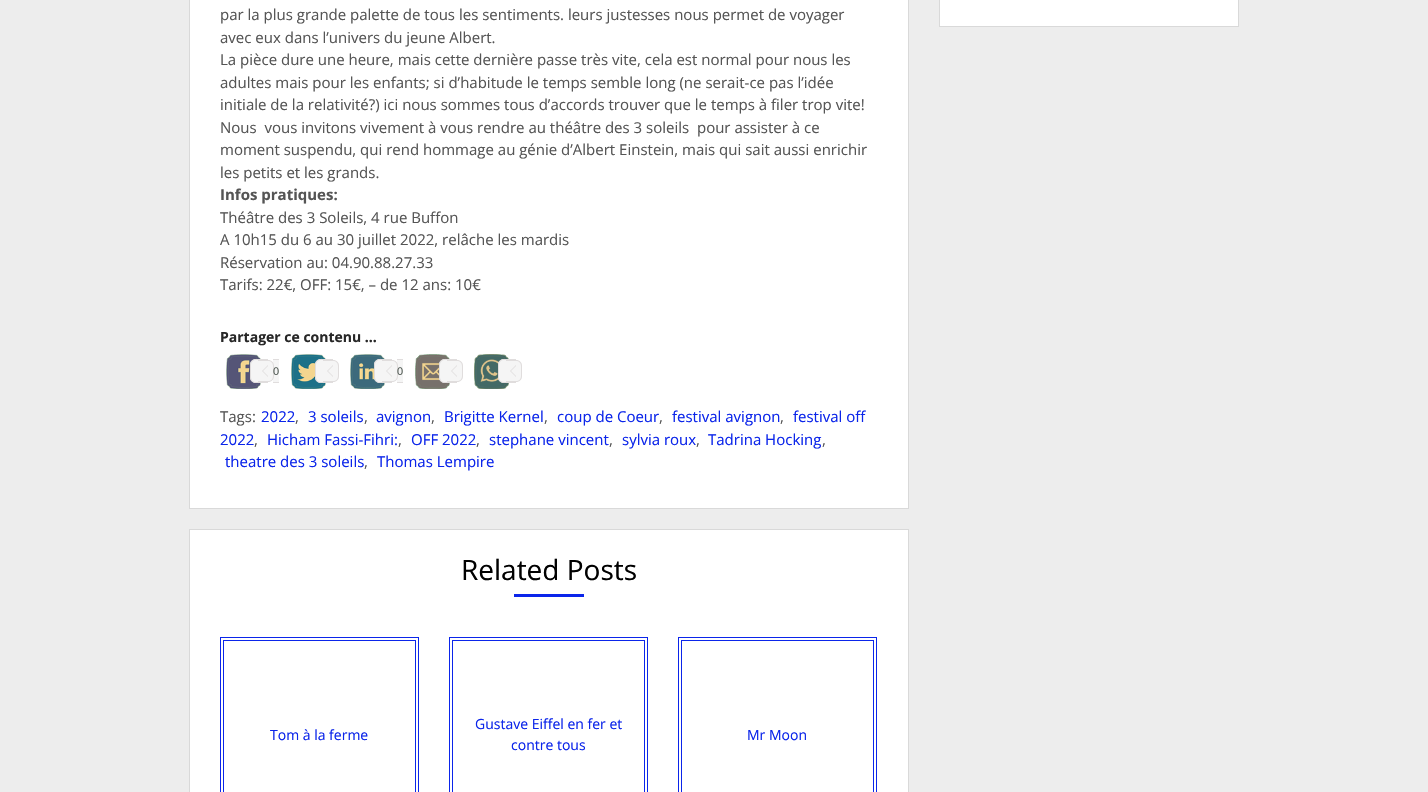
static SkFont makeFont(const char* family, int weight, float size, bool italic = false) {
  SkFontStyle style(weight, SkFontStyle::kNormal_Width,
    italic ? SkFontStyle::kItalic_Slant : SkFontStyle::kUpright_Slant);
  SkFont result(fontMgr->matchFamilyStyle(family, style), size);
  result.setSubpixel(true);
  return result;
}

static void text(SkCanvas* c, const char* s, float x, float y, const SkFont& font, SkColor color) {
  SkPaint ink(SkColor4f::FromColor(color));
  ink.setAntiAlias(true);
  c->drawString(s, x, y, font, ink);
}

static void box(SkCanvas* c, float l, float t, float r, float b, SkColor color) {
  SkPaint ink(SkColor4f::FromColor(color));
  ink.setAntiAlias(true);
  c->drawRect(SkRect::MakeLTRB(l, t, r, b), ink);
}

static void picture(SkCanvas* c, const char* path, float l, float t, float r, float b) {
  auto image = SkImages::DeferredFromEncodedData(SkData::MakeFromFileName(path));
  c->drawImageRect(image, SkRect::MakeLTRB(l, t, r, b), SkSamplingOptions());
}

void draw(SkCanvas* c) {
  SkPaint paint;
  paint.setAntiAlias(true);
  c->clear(0xffededed);
  paint.setColor(0xffffffff);
  c->drawRect(SkRect::MakeLTRB(189.5f, -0.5f, 908.5f, 508.5f), paint);
  paint.setStyle(SkPaint::kStroke_Style);
  paint.setStrokeWidth(1);
  paint.setColor(0xffd9d9d9);
  c->drawRect(SkRect::MakeLTRB(189.5f, -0.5f, 908.5f, 508.5f), paint);
  SkFont face1 = makeFont("Open Sans", 400, 15);
  text(c, "par la plus grande palette de tous les sentiments. leurs justesses nous permet de voyager", 220, 20, face1, 0xff555555);
  text(c, "avec eux dans l’univers du jeune Albert.", 220, 43, face1, 0xff555555);
  text(c, "La pièce dure une heure, mais cette dernière passe très vite, cela est normal pour nous les", 220, 65, face1, 0xff555555);
  text(c, "adultes mais pour les enfants; si d’habitude le temps semble long (ne serait-ce pas l’idée", 220, 88, face1, 0xff555555);
  text(c, "initiale de la relativité?) ici nous sommes tous d’accords trouver que le temps à filer trop vite!", 220, 110, face1, 0xff555555);
  text(c, "Nous  vous invitons vivement à vous rendre au théâtre des 3 soleils  pour assister à ce", 220, 133, face1, 0xff555555);
  text(c, "moment suspendu, qui rend hommage au génie d’Albert Einstein, mais qui sait aussi enrichir", 220, 155, face1, 0xff555555);
  text(c, "les petits et les grands.", 220, 178, face1, 0xff555555);
  SkFont face2 = makeFont("Open Sans", 700, 15);
  text(c, "Infos pratiques:", 220, 200, face2, 0xff555555);
  text(c, "Théâtre des 3 Soleils, 4 rue Buffon", 220, 223, face1, 0xff555555);
  text(c, "A 10h15 du 6 au 30 juillet 2022, relâche les mardis", 220, 245, face1, 0xff555555);
  text(c, "Réservation au: 04.90.88.27.33", 220, 268, face1, 0xff555555);
  text(c, "Tarifs: 22€, OFF: 15€, – de 12 ans: 10€", 220, 290, face1, 0xff555555);
  SkFont face3 = makeFont("Open Sans", 700, 14);
  text(c, "Partager ce contenu ...", 220, 342, face3, 0xff272727);
  picture(c, "img_01.png", 226, 354, 261, 389);
  paint.setStyle(SkPaint::kFill_Style);
  paint.setColor(0xfff5f5f5);
  c->drawPath(SkPathBuilder().moveTo(256, 359).lineTo(268, 359).lineTo(268, 383).lineTo(256, 383).cubicTo(252.5f, 383, 250, 380.5f, 250, 377).lineTo(250, 365).cubicTo(250, 361.5f, 252.5f, 359, 256, 359).close().detach(), paint);
  paint.setColor(0xffe0dddd);
  c->drawPath(SkPathBuilder(SkPathFillType::kEvenOdd).moveTo(256, 359).lineTo(268, 359).lineTo(268, 383).lineTo(256, 383).cubicTo(252.5f, 383, 250, 380.5f, 250, 377).lineTo(250, 365).cubicTo(250, 361.5f, 252.5f, 359, 256, 359).close().moveTo(256, 360).lineTo(268, 360).lineTo(268, 382).lineTo(256, 382).cubicTo(253, 382, 251, 380, 251, 377).lineTo(251, 365).cubicTo(251, 362, 253, 360, 256, 360).close().detach(), paint);
  box(c, 273, 359, 279, 383, 0xfff5f5f5);
  box(c, 273, 359, 279, 360, 0xffe0dddd);
  box(c, 273, 382, 279, 383, 0xffe0dddd);
  paint.setColor(0xfff5f5f5);
  c->drawPath(SkPathBuilder().moveTo(258, 360).lineTo(268, 360).cubicTo(271.5f, 360, 274, 362.5f, 274, 366).lineTo(274, 376).cubicTo(274, 379.5f, 271.5f, 382, 268, 382).lineTo(258, 382).close().detach(), paint);
  paint.setColor(0xffe0dddd);
  c->drawPath(SkPathBuilder(SkPathFillType::kEvenOdd).moveTo(258, 360).lineTo(268, 360).cubicTo(271.5f, 360, 274, 362.5f, 274, 366).lineTo(274, 376).cubicTo(274, 379.5f, 271.5f, 382, 268, 382).lineTo(258, 382).close().moveTo(258, 361).lineTo(268, 361).cubicTo(271, 361, 273, 363, 273, 366).lineTo(273, 376).cubicTo(273, 379, 271, 381, 268, 381).lineTo(258, 381).close().detach(), paint);
  c->drawPath(SkPathBuilder().moveTo(268, 365).lineTo(268, 377).lineTo(262, 371).close().detach(), paint);
  paint.setColor(0xfff5f5f5);
  c->drawPath(SkPathBuilder().moveTo(268, 366).lineTo(268, 376).lineTo(263, 371).close().detach(), paint);
  SkFont face4 = makeFont("Liberation Sans", 400, 11);
  text(c, "0", 273, 375, face4, 0xff555e58);
  picture(c, "img_02.png", 291, 354, 326, 389);
  c->drawPath(SkPathBuilder().moveTo(321, 359).lineTo(333, 359).lineTo(333, 383).lineTo(321, 383).cubicTo(317.5f, 383, 315, 380.5f, 315, 377).lineTo(315, 365).cubicTo(315, 361.5f, 317.5f, 359, 321, 359).close().detach(), paint);
  paint.setColor(0xffe0dddd);
  c->drawPath(SkPathBuilder(SkPathFillType::kEvenOdd).moveTo(321, 359).lineTo(333, 359).lineTo(333, 383).lineTo(321, 383).cubicTo(317.5f, 383, 315, 380.5f, 315, 377).lineTo(315, 365).cubicTo(315, 361.5f, 317.5f, 359, 321, 359).close().moveTo(321, 360).lineTo(333, 360).lineTo(333, 382).lineTo(321, 382).cubicTo(318, 382, 316, 380, 316, 377).lineTo(316, 365).cubicTo(316, 362, 318, 360, 321, 360).close().detach(), paint);
  paint.setColor(0xfff5f5f5);
  c->drawPath(SkPathBuilder().moveTo(323, 360).lineTo(333, 360).cubicTo(336.5f, 360, 339, 362.5f, 339, 366).lineTo(339, 376).cubicTo(339, 379.5f, 336.5f, 382, 333, 382).lineTo(323, 382).close().detach(), paint);
  paint.setColor(0xffe0dddd);
  c->drawPath(SkPathBuilder(SkPathFillType::kEvenOdd).moveTo(323, 360).lineTo(333, 360).cubicTo(336.5f, 360, 339, 362.5f, 339, 366).lineTo(339, 376).cubicTo(339, 379.5f, 336.5f, 382, 333, 382).lineTo(323, 382).close().moveTo(323, 361).lineTo(333, 361).cubicTo(336, 361, 338, 363, 338, 366).lineTo(338, 376).cubicTo(338, 379, 336, 381, 333, 381).lineTo(323, 381).close().detach(), paint);
  c->drawPath(SkPathBuilder().moveTo(333, 365).lineTo(333, 377).lineTo(327, 371).close().detach(), paint);
  paint.setColor(0xfff5f5f5);
  c->drawPath(SkPathBuilder().moveTo(333, 366).lineTo(333, 376).lineTo(328, 371).close().detach(), paint);
  picture(c, "img_03.png", 350, 354, 385, 389);
  c->drawPath(SkPathBuilder().moveTo(380, 359).lineTo(392, 359).lineTo(392, 383).lineTo(380, 383).cubicTo(376.5f, 383, 374, 380.5f, 374, 377).lineTo(374, 365).cubicTo(374, 361.5f, 376.5f, 359, 380, 359).close().detach(), paint);
  paint.setColor(0xffe0dddd);
  c->drawPath(SkPathBuilder(SkPathFillType::kEvenOdd).moveTo(380, 359).lineTo(392, 359).lineTo(392, 383).lineTo(380, 383).cubicTo(376.5f, 383, 374, 380.5f, 374, 377).lineTo(374, 365).cubicTo(374, 361.5f, 376.5f, 359, 380, 359).close().moveTo(380, 360).lineTo(392, 360).lineTo(392, 382).lineTo(380, 382).cubicTo(377, 382, 375, 380, 375, 377).lineTo(375, 365).cubicTo(375, 362, 377, 360, 380, 360).close().detach(), paint);
  box(c, 397, 359, 403, 383, 0xfff5f5f5);
  box(c, 397, 359, 403, 360, 0xffe0dddd);
  box(c, 397, 382, 403, 383, 0xffe0dddd);
  paint.setColor(0xfff5f5f5);
  c->drawPath(SkPathBuilder().moveTo(382, 360).lineTo(392, 360).cubicTo(395.5f, 360, 398, 362.5f, 398, 366).lineTo(398, 376).cubicTo(398, 379.5f, 395.5f, 382, 392, 382).lineTo(382, 382).close().detach(), paint);
  paint.setColor(0xffe0dddd);
  c->drawPath(SkPathBuilder(SkPathFillType::kEvenOdd).moveTo(382, 360).lineTo(392, 360).cubicTo(395.5f, 360, 398, 362.5f, 398, 366).lineTo(398, 376).cubicTo(398, 379.5f, 395.5f, 382, 392, 382).lineTo(382, 382).close().moveTo(382, 361).lineTo(392, 361).cubicTo(395, 361, 397, 363, 397, 366).lineTo(397, 376).cubicTo(397, 379, 395, 381, 392, 381).lineTo(382, 381).close().detach(), paint);
  c->drawPath(SkPathBuilder().moveTo(392, 365).lineTo(392, 377).lineTo(386, 371).close().detach(), paint);
  paint.setColor(0xfff5f5f5);
  c->drawPath(SkPathBuilder().moveTo(392, 366).lineTo(392, 376).lineTo(387, 371).close().detach(), paint);
  text(c, "0", 397, 375, face4, 0xff555e58);
  picture(c, "img_04.png", 415, 354, 450, 389);
  c->drawPath(SkPathBuilder().moveTo(445, 359).lineTo(457, 359).lineTo(457, 383).lineTo(445, 383).cubicTo(441.5f, 383, 439, 380.5f, 439, 377).lineTo(439, 365).cubicTo(439, 361.5f, 441.5f, 359, 445, 359).close().detach(), paint);
  paint.setColor(0xffe0dddd);
  c->drawPath(SkPathBuilder(SkPathFillType::kEvenOdd).moveTo(445, 359).lineTo(457, 359).lineTo(457, 383).lineTo(445, 383).cubicTo(441.5f, 383, 439, 380.5f, 439, 377).lineTo(439, 365).cubicTo(439, 361.5f, 441.5f, 359, 445, 359).close().moveTo(445, 360).lineTo(457, 360).lineTo(457, 382).lineTo(445, 382).cubicTo(442, 382, 440, 380, 440, 377).lineTo(440, 365).cubicTo(440, 362, 442, 360, 445, 360).close().detach(), paint);
  paint.setColor(0xfff5f5f5);
  c->drawPath(SkPathBuilder().moveTo(447, 360).lineTo(457, 360).cubicTo(460.5f, 360, 463, 362.5f, 463, 366).lineTo(463, 376).cubicTo(463, 379.5f, 460.5f, 382, 457, 382).lineTo(447, 382).close().detach(), paint);
  paint.setColor(0xffe0dddd);
  c->drawPath(SkPathBuilder(SkPathFillType::kEvenOdd).moveTo(447, 360).lineTo(457, 360).cubicTo(460.5f, 360, 463, 362.5f, 463, 366).lineTo(463, 376).cubicTo(463, 379.5f, 460.5f, 382, 457, 382).lineTo(447, 382).close().moveTo(447, 361).lineTo(457, 361).cubicTo(460, 361, 462, 363, 462, 366).lineTo(462, 376).cubicTo(462, 379, 460, 381, 457, 381).lineTo(447, 381).close().detach(), paint);
  c->drawPath(SkPathBuilder().moveTo(457, 365).lineTo(457, 377).lineTo(451, 371).close().detach(), paint);
  paint.setColor(0xfff5f5f5);
  c->drawPath(SkPathBuilder().moveTo(457, 366).lineTo(457, 376).lineTo(452, 371).close().detach(), paint);
  picture(c, "img_05.png", 474, 354, 509, 389);
  c->drawPath(SkPathBuilder().moveTo(504, 359).lineTo(516, 359).lineTo(516, 383).lineTo(504, 383).cubicTo(500.5f, 383, 498, 380.5f, 498, 377).lineTo(498, 365).cubicTo(498, 361.5f, 500.5f, 359, 504, 359).close().detach(), paint);
  paint.setColor(0xffe0dddd);
  c->drawPath(SkPathBuilder(SkPathFillType::kEvenOdd).moveTo(504, 359).lineTo(516, 359).lineTo(516, 383).lineTo(504, 383).cubicTo(500.5f, 383, 498, 380.5f, 498, 377).lineTo(498, 365).cubicTo(498, 361.5f, 500.5f, 359, 504, 359).close().moveTo(504, 360).lineTo(516, 360).lineTo(516, 382).lineTo(504, 382).cubicTo(501, 382, 499, 380, 499, 377).lineTo(499, 365).cubicTo(499, 362, 501, 360, 504, 360).close().detach(), paint);
  paint.setColor(0xfff5f5f5);
  c->drawPath(SkPathBuilder().moveTo(506, 360).lineTo(516, 360).cubicTo(519.5f, 360, 522, 362.5f, 522, 366).lineTo(522, 376).cubicTo(522, 379.5f, 519.5f, 382, 516, 382).lineTo(506, 382).close().detach(), paint);
  paint.setColor(0xffe0dddd);
  c->drawPath(SkPathBuilder(SkPathFillType::kEvenOdd).moveTo(506, 360).lineTo(516, 360).cubicTo(519.5f, 360, 522, 362.5f, 522, 366).lineTo(522, 376).cubicTo(522, 379.5f, 519.5f, 382, 516, 382).lineTo(506, 382).close().moveTo(506, 361).lineTo(516, 361).cubicTo(519, 361, 521, 363, 521, 366).lineTo(521, 376).cubicTo(521, 379, 519, 381, 516, 381).lineTo(506, 381).close().detach(), paint);
  c->drawPath(SkPathBuilder().moveTo(516, 365).lineTo(516, 377).lineTo(510, 371).close().detach(), paint);
  paint.setColor(0xfff5f5f5);
  c->drawPath(SkPathBuilder().moveTo(516, 366).lineTo(516, 376).lineTo(511, 371).close().detach(), paint);
  text(c, "Tags:", 220, 422, face1, 0xff555555);
  text(c, "2022", 261, 422, face1, 0xff0b25ea);
  text(c, ",", 295, 422, face1, 0xff555555);
  text(c, "3 soleils", 308, 422, face1, 0xff0b25ea);
  text(c, ",", 364, 422, face1, 0xff555555);
  text(c, "avignon", 376, 422, face1, 0xff0b25ea);
  text(c, ",", 431, 422, face1, 0xff555555);
  text(c, "Brigitte Kernel", 444, 422, face1, 0xff0b25ea);
  text(c, ",", 544, 422, face1, 0xff555555);
  text(c, "coup de Coeur", 557, 422, face1, 0xff0b25ea);
  text(c, ",", 659, 422, face1, 0xff555555);
  text(c, "festival avignon", 672, 422, face1, 0xff0b25ea);
  text(c, ",", 780, 422, face1, 0xff555555);
  text(c, "festival off", 793, 422, face1, 0xff0b25ea);
  text(c, "2022", 220, 445, face1, 0xff0b25ea);
  text(c, ",", 254, 445, face1, 0xff555555);
  text(c, "Hicham Fassi-Fihri:", 267, 445, face1, 0xff0b25ea);
  text(c, ",", 398, 445, face1, 0xff555555);
  text(c, "OFF 2022", 411, 445, face1, 0xff0b25ea);
  text(c, ",", 476, 445, face1, 0xff555555);
  text(c, "stephane vincent", 489, 445, face1, 0xff0b25ea);
  text(c, ",", 609, 445, face1, 0xff555555);
  text(c, "sylvia roux", 622, 445, face1, 0xff0b25ea);
  text(c, ",", 696, 445, face1, 0xff555555);
  text(c, "Tadrina Hocking", 708, 445, face1, 0xff0b25ea);
  text(c, ",", 822, 445, face1, 0xff555555);
  text(c, "theatre des 3 soleils", 225, 467, face1, 0xff0b25ea);
  text(c, ",", 364, 467, face1, 0xff555555);
  text(c, "Thomas Lempire", 377, 467, face1, 0xff0b25ea);
  paint.setColor(0xffffffff);
  c->drawRect(SkRect::MakeLTRB(189.5f, 529.5f, 908.5f, 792.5f), paint);
  paint.setStyle(SkPaint::kStroke_Style);
  paint.setColor(0xffd9d9d9);
  c->drawRect(SkRect::MakeLTRB(189.5f, 529.5f, 908.5f, 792.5f), paint);
  SkFont face5 = makeFont("Open Sans", 400, 28);
  text(c, "Related Posts", 461, 580, face5, 0xff000000);
  box(c, 514, 594, 584, 597, 0xff0b25ea);
  paint.setColor(0xff0b25ea);
  c->drawRect(SkRect::MakeLTRB(220.5f, 637.5f, 418.5f, 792.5f), paint);
  c->drawRect(SkRect::MakeLTRB(223.5f, 640.5f, 415.5f, 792.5f), paint);
  SkFont face6 = makeFont("Open Sans", 400, 14);
  text(c, "Tom à la ferme", 270, 740, face6, 0xff0b25ea);
  c->drawRect(SkRect::MakeLTRB(449.5f, 637.5f, 647.5f, 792.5f), paint);
  c->drawRect(SkRect::MakeLTRB(452.5f, 640.5f, 644.5f, 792.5f), paint);
  text(c, "Gustave Eiffel en fer et", 475, 729, face6, 0xff0b25ea);
  text(c, "contre tous", 511, 750, face6, 0xff0b25ea);
  c->drawRect(SkRect::MakeLTRB(678.5f, 637.5f, 876.5f, 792.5f), paint);
  c->drawRect(SkRect::MakeLTRB(681.5f, 640.5f, 873.5f, 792.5f), paint);
  text(c, "Mr Moon", 747, 740, face6, 0xff0b25ea);
  paint.setStyle(SkPaint::kFill_Style);
  paint.setColor(0xffffffff);
  c->drawRect(SkRect::MakeLTRB(939.5f, -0.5f, 1238.5f, 26.5f), paint);
  paint.setStyle(SkPaint::kStroke_Style);
  paint.setColor(0xffd9d9d9);
  c->drawRect(SkRect::MakeLTRB(939.5f, -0.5f, 1238.5f, 26.5f), paint);
}
